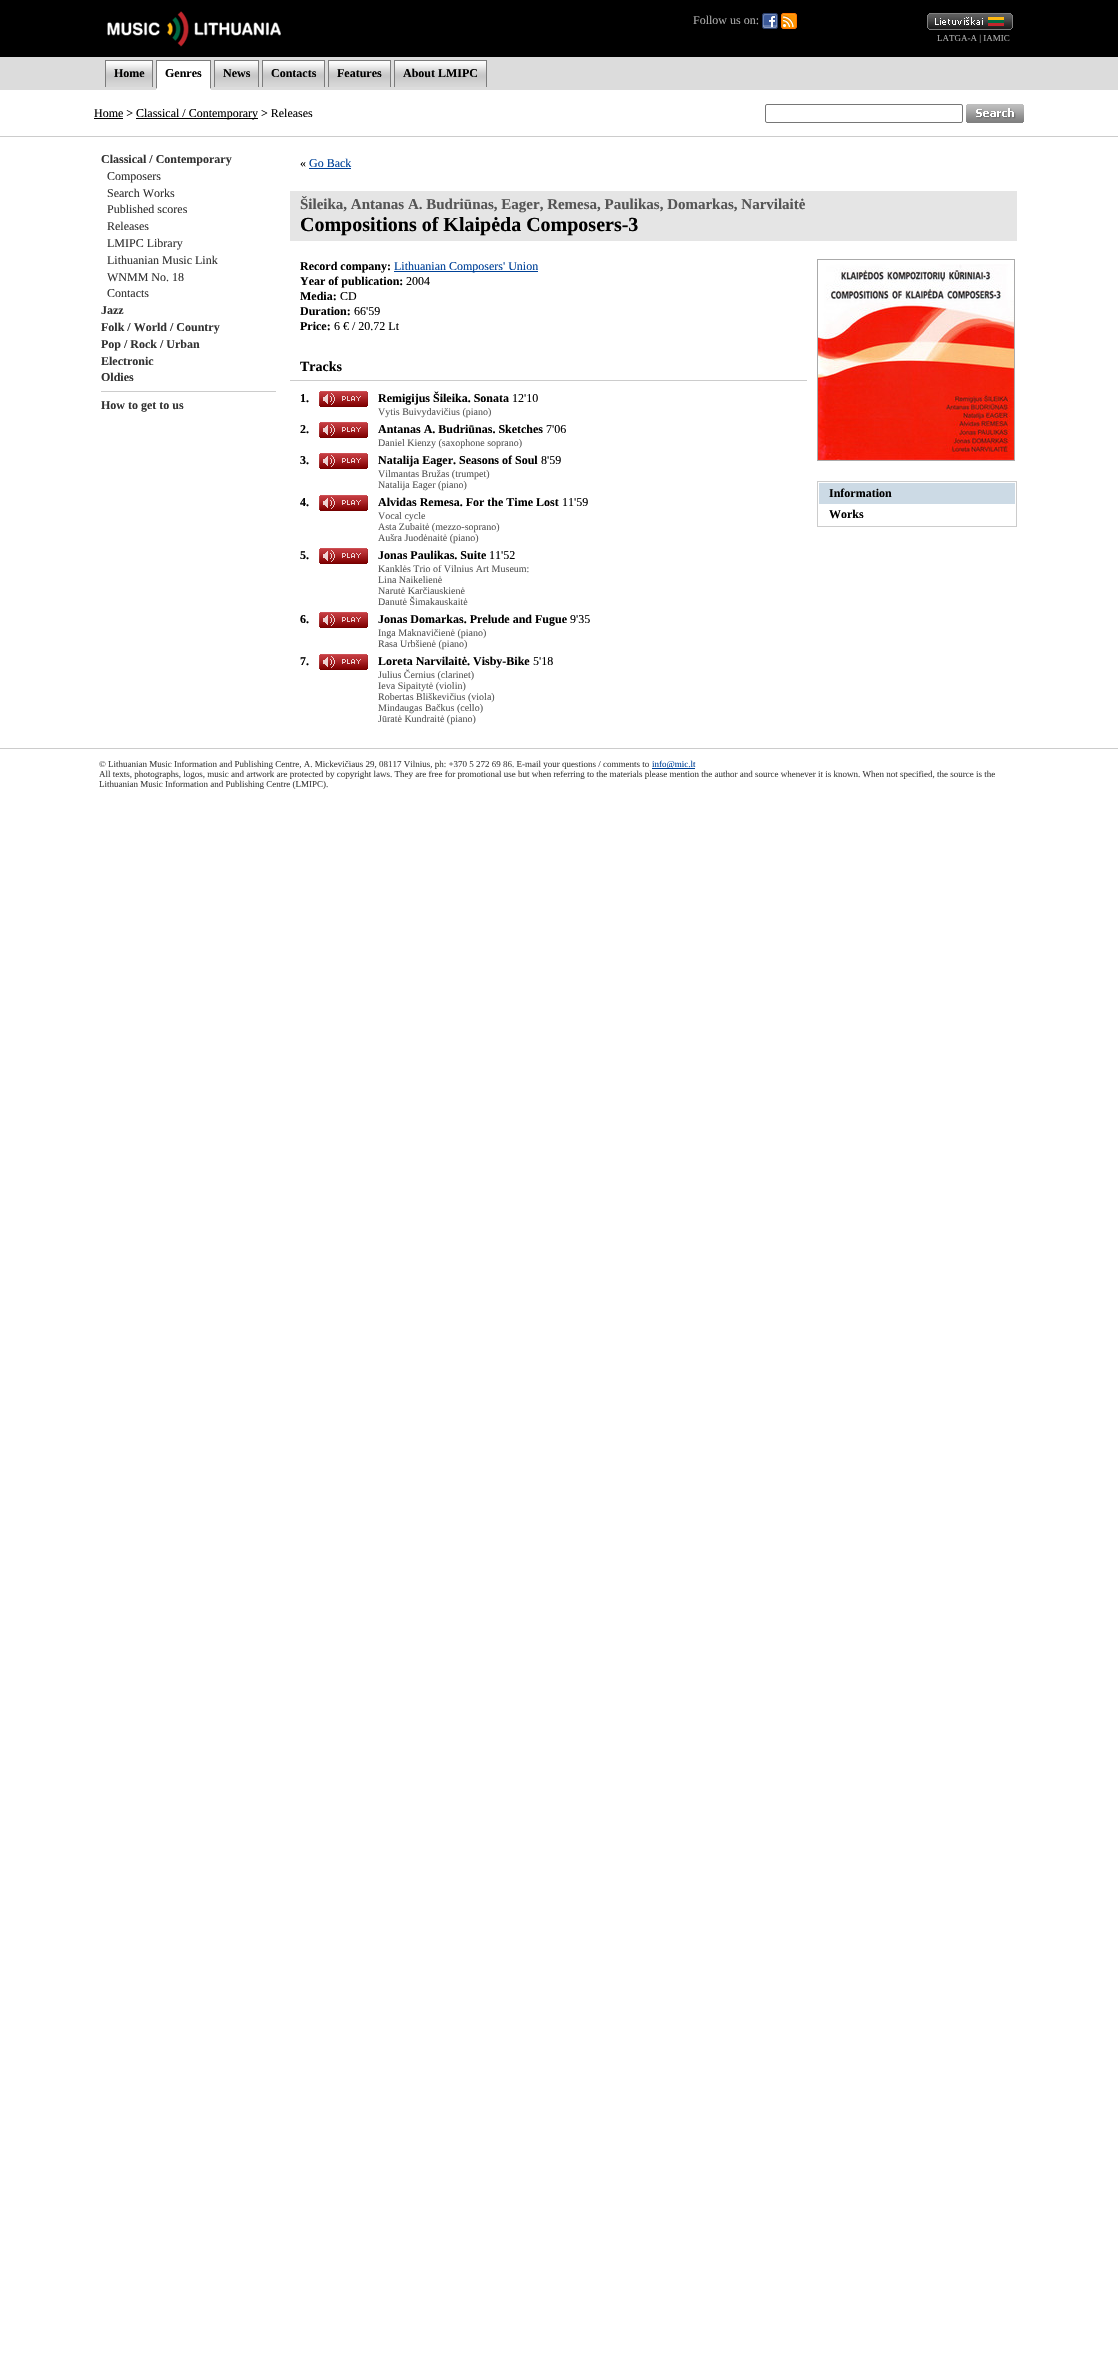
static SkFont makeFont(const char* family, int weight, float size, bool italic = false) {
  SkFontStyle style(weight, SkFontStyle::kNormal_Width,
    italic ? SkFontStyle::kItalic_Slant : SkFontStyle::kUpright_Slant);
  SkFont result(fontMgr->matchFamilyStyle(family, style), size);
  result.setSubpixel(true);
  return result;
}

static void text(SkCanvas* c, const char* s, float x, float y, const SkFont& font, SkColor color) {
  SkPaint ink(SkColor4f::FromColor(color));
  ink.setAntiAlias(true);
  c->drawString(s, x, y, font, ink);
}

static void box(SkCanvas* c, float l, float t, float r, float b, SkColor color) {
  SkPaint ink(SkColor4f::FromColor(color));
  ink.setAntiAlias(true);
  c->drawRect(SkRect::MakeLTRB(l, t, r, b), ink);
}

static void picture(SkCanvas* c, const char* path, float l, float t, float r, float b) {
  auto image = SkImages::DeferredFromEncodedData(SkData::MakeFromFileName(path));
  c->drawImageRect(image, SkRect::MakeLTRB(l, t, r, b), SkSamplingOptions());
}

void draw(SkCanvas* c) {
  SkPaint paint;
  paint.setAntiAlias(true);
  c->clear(0xffffffff);
  box(c, 0, 0, 1118, 57, 0xff000000);
  picture(c, "img_01.png", 107, 11, 281, 47);
  SkFont face1 = makeFont("Liberation Serif", 400, 12);
  text(c, "Follow us on:", 693, 24, face1, 0xffaaaaaa);
  picture(c, "img_02.png", 762, 13, 778, 29);
  picture(c, "img_03.png", 781, 13, 797, 29);
  picture(c, "img_04.png", 927, 13, 1013, 30);
  SkFont face2 = makeFont("Liberation Serif", 400, 9);
  text(c, "LATGA-A | IAMIC", 937, 41, face2, 0xffaaaaaa);
  box(c, 0, 57, 1118, 90, 0xffdcdcdc);
  picture(c, "img_05.png", 106, 61, 152, 87);
  box(c, 105, 60, 153, 61, 0xff7c7c7c);
  box(c, 152, 60, 153, 87, 0xff7c7c7c);
  box(c, 105, 60, 106, 87, 0xff7c7c7c);
  SkFont face3 = makeFont("Liberation Serif", 700, 12);
  text(c, "Home", 114, 77, face3, 0xff000000);
  box(c, 157, 61, 210, 87, 0xffffffff);
  box(c, 156, 60, 211, 61, 0xff7c7c7c);
  box(c, 210, 60, 211, 87, 0xff7c7c7c);
  box(c, 156, 60, 157, 87, 0xff7c7c7c);
  text(c, "Genres", 165, 77, face3, 0xff000000);
  picture(c, "img_06.png", 215, 61, 258, 87);
  box(c, 214, 60, 259, 61, 0xff7c7c7c);
  box(c, 258, 60, 259, 87, 0xff7c7c7c);
  box(c, 214, 60, 215, 87, 0xff7c7c7c);
  text(c, "News", 223, 77, face3, 0xff000000);
  picture(c, "img_07.png", 263, 61, 324, 87);
  box(c, 262, 60, 325, 61, 0xff7c7c7c);
  box(c, 324, 60, 325, 87, 0xff7c7c7c);
  box(c, 262, 60, 263, 87, 0xff7c7c7c);
  text(c, "Contacts", 271, 77, face3, 0xff000000);
  picture(c, "img_07.png", 329, 61, 390, 87);
  box(c, 328, 60, 391, 61, 0xff7c7c7c);
  box(c, 390, 60, 391, 87, 0xff7c7c7c);
  box(c, 328, 60, 329, 87, 0xff7c7c7c);
  text(c, "Features", 337, 77, face3, 0xff000000);
  picture(c, "img_08.png", 395, 61, 486, 87);
  box(c, 394, 60, 487, 61, 0xff7c7c7c);
  box(c, 486, 60, 487, 87, 0xff7c7c7c);
  box(c, 394, 60, 395, 87, 0xff7c7c7c);
  text(c, "About LMIPC", 403, 77, face3, 0xff000000);
  box(c, 156, 87, 211, 90, 0xffffffff);
  picture(c, "img_09.png", 156, 87, 157, 89);
  picture(c, "img_09.png", 210, 87, 211, 89);
  text(c, "Home >", 94, 117, face1, 0xff000000);
  box(c, 94, 118, 123, 119, 0xff000000);
  box(c, 136, 118, 258, 119, 0xff000000);
  text(c, "Classical / Contemporary > Releases", 136, 117, face1, 0xff000000);
  paint.setStyle(SkPaint::kStroke_Style);
  paint.setStrokeWidth(1);
  paint.setColor(0xff767676);
  c->drawRoundRect(SkRect::MakeLTRB(765.5f, 104.5f, 962.5f, 122.5f), 1.5f, 1.5f, paint);
  picture(c, "img_10.png", 966, 104, 1024, 123);
  box(c, 0, 136, 1118, 137, 0xffcccccc);
  text(c, "Classical / Contemporary", 101, 163, face3, 0xff333333);
  text(c, "Composers", 107, 180, face1, 0xff333333);
  text(c, "Search Works", 107, 197, face1, 0xff333333);
  text(c, "Published scores", 107, 213, face1, 0xff333333);
  text(c, "Releases", 107, 230, face1, 0xff333333);
  text(c, "LMIPC Library", 107, 247, face1, 0xff333333);
  text(c, "Lithuanian Music Link", 107, 264, face1, 0xff333333);
  text(c, "WNMM No. 18", 107, 281, face1, 0xff333333);
  text(c, "Contacts", 107, 297, face1, 0xff333333);
  text(c, "Jazz", 101, 314, face3, 0xff333333);
  text(c, "Folk / World / Country", 101, 331, face3, 0xff333333);
  text(c, "Pop / Rock / Urban", 101, 348, face3, 0xff333333);
  text(c, "Electronic", 101, 365, face3, 0xff333333);
  text(c, "Oldies", 101, 381, face3, 0xff333333);
  box(c, 101, 391, 276, 392, 0xffcccccc);
  text(c, "How to get to us", 101, 409, face3, 0xff333333);
  text(c, "«", 300, 167, face1, 0xff000000);
  text(c, "Go Back", 309, 167, face1, 0xff004298);
  box(c, 309, 168, 351, 169, 0xff004298);
  box(c, 290, 191, 1017, 241, 0xffe5e5e5);
  SkFont face4 = makeFont("Liberation Serif", 700, 15);
  text(c, "Šileika, Antanas A. Budriūnas, Eager, Remesa, Paulikas, Domarkas, Narvilaitė", 300, 209, face4, 0xff555555);
  SkFont face5 = makeFont("Liberation Serif", 700, 20);
  text(c, "Compositions of Klaipėda Composers-3", 300, 231, face5, 0xff000000);
  text(c, "Record company:", 300, 270, face3, 0xff000000);
  box(c, 394, 271, 538, 272, 0xff004298);
  text(c, "Lithuanian Composers' Union", 394, 270, face1, 0xff004298);
  text(c, "Year of publication:", 300, 285, face3, 0xff000000);
  text(c, "2004", 406, 285, face1, 0xff000000);
  text(c, "Media:", 300, 300, face3, 0xff000000);
  text(c, "CD", 340, 300, face1, 0xff000000);
  text(c, "Duration:", 300, 315, face3, 0xff000000);
  text(c, "66'59", 354, 315, face1, 0xff000000);
  text(c, "Price:", 300, 330, face3, 0xff000000);
  text(c, "6 € / 20.72 Lt", 334, 330, face1, 0xff000000);
  SkFont face6 = makeFont("Liberation Serif", 700, 14);
  text(c, "Tracks", 300, 371, face6, 0xff000000);
  box(c, 290, 380, 807, 381, 0xffcccccc);
  text(c, "1.", 300, 402, face3, 0xff000000);
  picture(c, "img_11.png", 319, 391, 368, 407);
  text(c, "Remigijus Šileika. Sonata", 378, 402, face3, 0xff000000);
  text(c, "12'10", 512, 402, face1, 0xff000000);
  SkFont face7 = makeFont("Liberation Serif", 400, 10);
  text(c, "Vytis Buivydavičius (piano)", 378, 415, face7, 0xff555555);
  text(c, "2.", 300, 433, face3, 0xff000000);
  picture(c, "img_11.png", 319, 422, 368, 438);
  text(c, "Antanas A. Budriūnas. Sketches", 378, 433, face3, 0xff000000);
  text(c, "7'06", 546, 433, face1, 0xff000000);
  text(c, "Daniel Kienzy (saxophone soprano)", 378, 446, face7, 0xff555555);
  text(c, "3.", 300, 464, face3, 0xff000000);
  picture(c, "img_11.png", 319, 453, 368, 469);
  text(c, "Natalija Eager. Seasons of Soul", 378, 464, face3, 0xff000000);
  text(c, "8'59", 541, 464, face1, 0xff000000);
  text(c, "Vilmantas Bružas (trumpet)", 378, 477, face7, 0xff555555);
  text(c, "Natalija Eager (piano)", 378, 488, face7, 0xff555555);
  text(c, "4.", 300, 506, face3, 0xff000000);
  picture(c, "img_11.png", 319, 495, 368, 511);
  text(c, "Alvidas Remesa. For the Time Lost", 378, 506, face3, 0xff000000);
  text(c, "11'59", 562, 506, face1, 0xff000000);
  text(c, "Vocal cycle", 378, 519, face7, 0xff555555);
  text(c, "Asta Zubaitė (mezzo-soprano)", 378, 530, face7, 0xff555555);
  text(c, "Aušra Juodėnaitė (piano)", 378, 541, face7, 0xff555555);
  text(c, "5.", 300, 559, face3, 0xff000000);
  picture(c, "img_11.png", 319, 548, 368, 564);
  text(c, "Jonas Paulikas. Suite", 378, 559, face3, 0xff000000);
  text(c, "11'52", 489, 559, face1, 0xff000000);
  text(c, "Kanklės Trio of Vilnius Art Museum:", 378, 572, face7, 0xff555555);
  text(c, "Lina Naikelienė", 378, 583, face7, 0xff555555);
  text(c, "Narutė Karčiauskienė", 378, 594, face7, 0xff555555);
  text(c, "Danutė Šimakauskaitė", 378, 605, face7, 0xff555555);
  text(c, "6.", 300, 623, face3, 0xff000000);
  picture(c, "img_11.png", 319, 612, 368, 628);
  text(c, "Jonas Domarkas. Prelude and Fugue", 378, 623, face3, 0xff000000);
  text(c, "9'35", 570, 623, face1, 0xff000000);
  text(c, "Inga Maknavičienė (piano)", 378, 636, face7, 0xff555555);
  text(c, "Rasa Urbšienė (piano)", 378, 647, face7, 0xff555555);
  text(c, "7.", 300, 665, face3, 0xff000000);
  picture(c, "img_11.png", 319, 654, 368, 670);
  text(c, "Loreta Narvilaitė. Visby-Bike", 378, 665, face3, 0xff000000);
  text(c, "5'18", 533, 665, face1, 0xff000000);
  text(c, "Julius Černius (clarinet)", 378, 678, face7, 0xff555555);
  text(c, "Ieva Sipaitytė (violin)", 378, 689, face7, 0xff555555);
  text(c, "Robertas Bliškevičius (viola)", 378, 700, face7, 0xff555555);
  text(c, "Mindaugas Bačkus (cello)", 378, 711, face7, 0xff555555);
  text(c, "Jūratė Kundraitė (piano)", 378, 722, face7, 0xff555555);
  paint.setColor(0xffaaaaaa);
  c->drawRect(SkRect::MakeLTRB(817.5f, 259.5f, 1014.5f, 460.5f), paint);
  picture(c, "img_12.png", 818, 264, 1014, 460);
  paint.setColor(0xffcccccc);
  c->drawRect(SkRect::MakeLTRB(817.5f, 481.5f, 1016.5f, 526.5f), paint);
  box(c, 819, 483, 1015, 504, 0xffccdae5);
  text(c, "Information", 829, 497, face3, 0xff000000);
  text(c, "Works", 829, 518, face3, 0xff000000);
  box(c, 0, 748, 1118, 749, 0xffcccccc);
  text(c, "© Lithuanian Music Information and Publishing Centre, A. Mickevičiaus 29, 08117 Vilnius, ph: +370 5 272 69 86. E-mail your questions / comments to", 99, 767, face2, 0xff404040);
  box(c, 652, 768, 695, 769, 0xff004298);
  text(c, "info@mic.lt", 652, 767, face2, 0xff004298);
  text(c, "All texts, photographs, logos, music and artwork are protected by copyright laws. They are free for promotional use but when referring to the materials please mention the author and source whenever it is known. When not specified, the source is the", 99, 777, face2, 0xff404040);
  text(c, "Lithuanian Music Information and Publishing Centre (LMIPC).", 99, 787, face2, 0xff404040);
}
